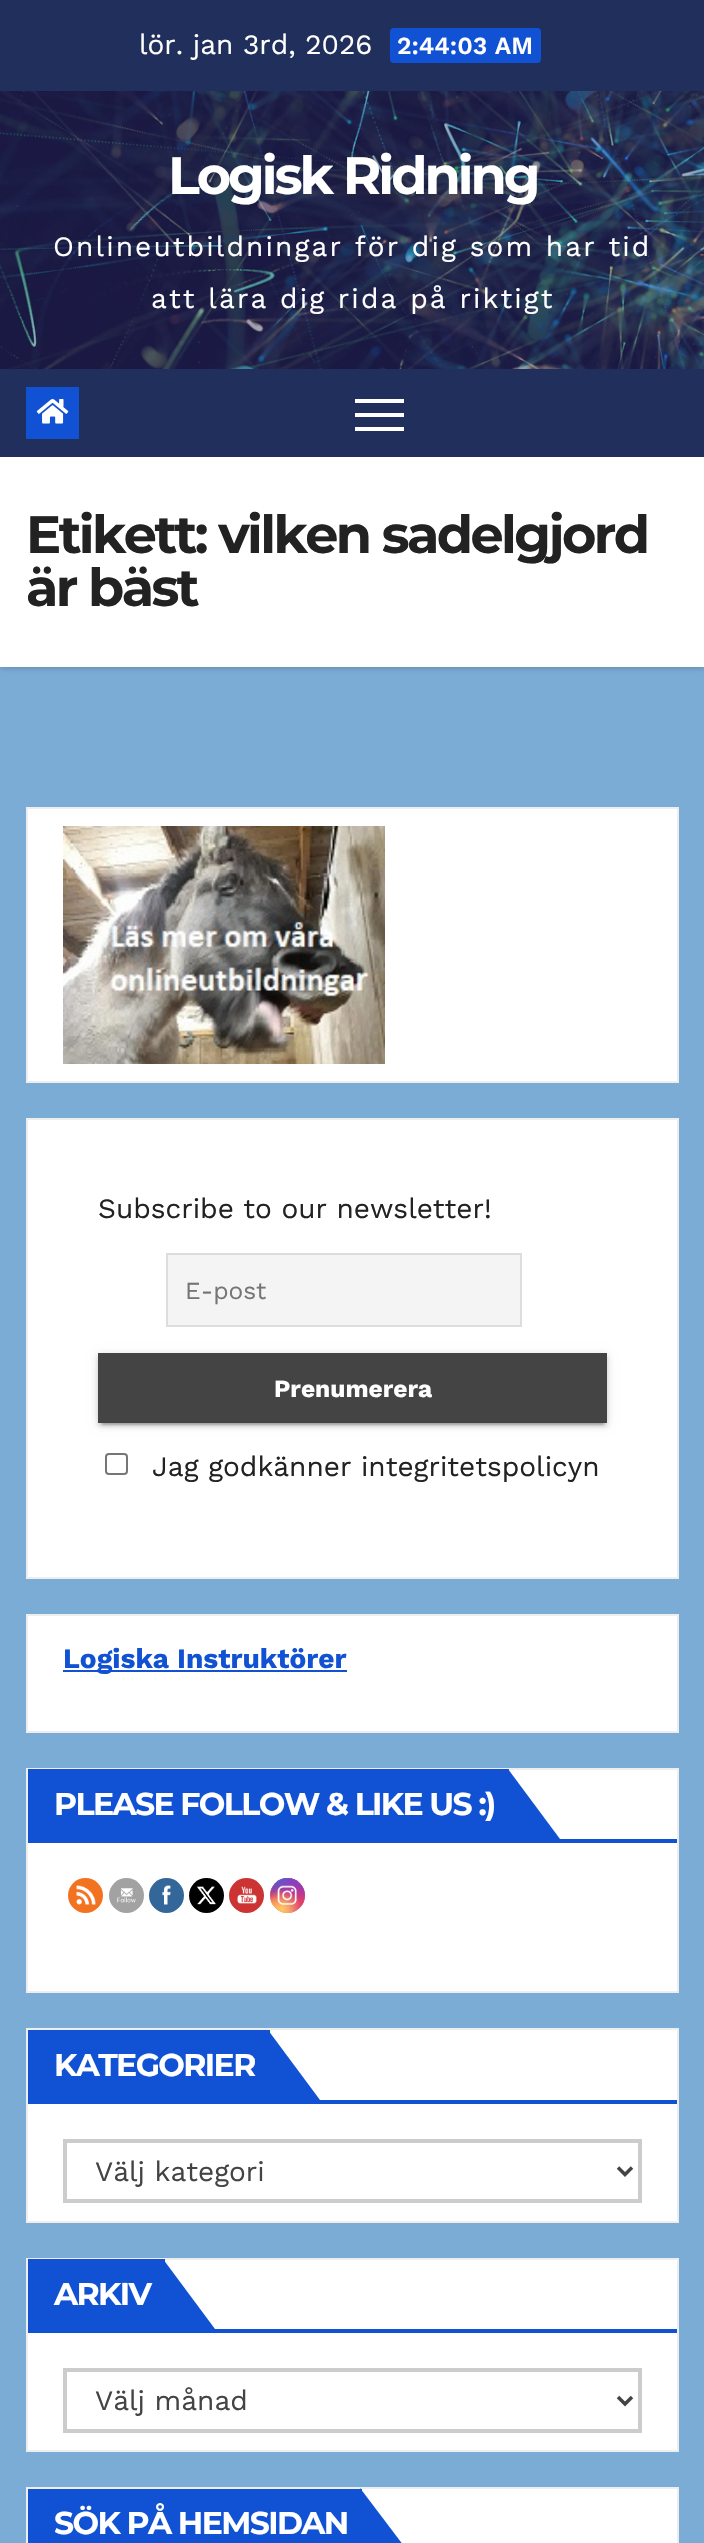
static SkFont makeFont(const char* family, int weight, float size, bool italic = false) {
  SkFontStyle style(weight, SkFontStyle::kNormal_Width,
    italic ? SkFontStyle::kItalic_Slant : SkFontStyle::kUpright_Slant);
  SkFont result(fontMgr->matchFamilyStyle(family, style), size);
  result.setSubpixel(true);
  return result;
}

static void text(SkCanvas* c, const char* s, float x, float y, const SkFont& font, SkColor color) {
  SkPaint ink(SkColor4f::FromColor(color));
  ink.setAntiAlias(true);
  c->drawString(s, x, y, font, ink);
}

static void spacedText(SkCanvas* c, const char* s, float x, float y, const SkFont& font, const SkPaint& ink, float letter, float word) {
  std::vector<SkGlyphID> glyphs(font.countText(s, strlen(s), SkTextEncoding::kUTF8));
  std::vector<float> xs(glyphs.size());
  font.textToGlyphs(s, strlen(s), SkTextEncoding::kUTF8, glyphs);
  font.getXPos(glyphs, xs, x);
  float extra = 0;
  for (size_t i = 0; i < glyphs.size(); i++) {
    xs[i] += extra;
    extra += letter + word * (glyphs[i] == font.unicharToGlyph(' '));
  }
  c->drawTextBlob(SkTextBlob::MakeFromPosHGlyphs(glyphs, xs, y, font), 0, 0, ink);
}

static void box(SkCanvas* c, float l, float t, float r, float b, SkColor color) {
  SkPaint ink(SkColor4f::FromColor(color));
  ink.setAntiAlias(true);
  c->drawRect(SkRect::MakeLTRB(l, t, r, b), ink);
}

static void roundBox(SkCanvas* c, float l, float t, float r, float b, float radius, SkColor color) {
  SkPaint ink(SkColor4f::FromColor(color));
  ink.setAntiAlias(true);
  c->drawRoundRect(SkRect::MakeLTRB(l, t, r, b), radius, radius, ink);
}

static void picture(SkCanvas* c, const char* path, float l, float t, float r, float b) {
  auto image = SkImages::DeferredFromEncodedData(SkData::MakeFromFileName(path));
  c->drawImageRect(image, SkRect::MakeLTRB(l, t, r, b), SkSamplingOptions());
}

void draw(SkCanvas* c) {
  SkPaint paint;
  paint.setAntiAlias(true);
  c->clear(0xff7aacd6);
  box(c, 0, 0, 704, 91, 0xff202f5b);
  SkFont face1 = makeFont("Work Sans", 400, 28);
  text(c, "lör. jan 3rd, 2026", 139, 54, face1, 0xffffffff);
  roundBox(c, 390, 28, 541, 63, 4, 0xff1151d3);
  SkFont face2 = makeFont("Work Sans", 600, 24.5f);
  text(c, "2:44:03 AM", 397, 54, face2, 0xffffffff);
  picture(c, "img_01.png", 0, 91, 704, 369);
  SkFont face3 = makeFont("Montserrat", 700, 52.5f);
  paint.setColor(0xffffffff);
  spacedText(c, "Logisk Ridning", 168, 194, face3, paint, -3, 0);
  spacedText(c, "Onlineutbildningar för dig som har tid", 53, 256, face1, paint, 2.1f, 0);
  spacedText(c, "att lära dig rida på riktigt", 151, 308, face1, paint, 2.1f, 0);
  paint.setColor(0x26000000);
  paint.setMaskFilter(SkMaskFilter::MakeBlur(kNormal_SkBlurStyle, 2.5f));
  c->drawRect(SkRect::MakeLTRB(0, 459, 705, 669), paint);
  paint.setMaskFilter(nullptr);
  box(c, 0, 369, 704, 457, 0xff202f5b);
  box(c, 26, 387, 79, 439, 0xff1151d3);
  picture(c, "img_02.png", 36, 399, 69, 424);
  box(c, 355, 399, 404, 403, 0xffffffff);
  box(c, 355, 413, 404, 417, 0xffffffff);
  box(c, 355, 427, 404, 431, 0xffffffff);
  box(c, 0, 457, 704, 667, 0xffffffff);
  paint.setColor(0xff222222);
  spacedText(c, "Etikett: vilken sadelgjord", 26, 553, face3, paint, -2.6f, 0);
  spacedText(c, "är bäst", 26, 606, face3, paint, -2.6f, 0);
  paint.setColor(0xffffffff);
  c->drawRect(SkRect::MakeLTRB(27, 808, 678, 1082), paint);
  paint.setStyle(SkPaint::kStroke_Style);
  paint.setStrokeWidth(2);
  paint.setColor(0xffeeeeee);
  c->drawRect(SkRect::MakeLTRB(27, 808, 678, 1082), paint);
  picture(c, "img_03.png", 63, 826, 385, 1064);
  paint.setStyle(SkPaint::kFill_Style);
  paint.setColor(0xffffffff);
  c->drawRect(SkRect::MakeLTRB(27, 1119, 678, 1578), paint);
  paint.setStyle(SkPaint::kStroke_Style);
  paint.setColor(0xffeeeeee);
  c->drawRect(SkRect::MakeLTRB(27, 1119, 678, 1578), paint);
  text(c, "Subscribe to our newsletter!", 98, 1218, face1, 0xff222222);
  paint.setStyle(SkPaint::kFill_Style);
  paint.setColor(0xfff4f4f4);
  c->drawRect(SkRect::MakeLTRB(167, 1254, 521, 1326), paint);
  paint.setStyle(SkPaint::kStroke_Style);
  paint.setColor(0xffdddddd);
  c->drawRect(SkRect::MakeLTRB(167, 1254, 521, 1326), paint);
  SkFont face4 = makeFont("Work Sans", 400, 24.5f);
  text(c, "E-post", 185, 1299, face4, 0xff757575);
  paint.setStyle(SkPaint::kFill_Style);
  paint.setColor(0x1f000000);
  paint.setMaskFilter(SkMaskFilter::MakeBlur(kNormal_SkBlurStyle, 4.5f));
  c->drawRect(SkRect::MakeLTRB(98, 1355, 607, 1425), paint);
  paint.setMaskFilter(nullptr);
  paint.setColor(0x33000000);
  paint.setMaskFilter(SkMaskFilter::MakeBlur(kNormal_SkBlurStyle, 1));
  c->drawRect(SkRect::MakeLTRB(102, 1362, 604, 1425), paint);
  paint.setMaskFilter(nullptr);
  paint.setColor(0x24000000);
  paint.setMaskFilter(SkMaskFilter::MakeBlur(kNormal_SkBlurStyle, 2));
  c->drawRect(SkRect::MakeLTRB(98, 1356, 607, 1426), paint);
  paint.setMaskFilter(nullptr);
  box(c, 98, 1353, 607, 1423, 0xff444444);
  SkFont face5 = makeFont("Work Sans", 700, 24.5f);
  text(c, "Prenumerera", 274, 1397, face5, 0xffffffff);
  paint.setStyle(SkPaint::kStroke_Style);
  paint.setColor(0xff767676);
  c->drawRoundRect(SkRect::MakeLTRB(106, 1454, 127, 1474), 3, 3, paint);
  text(c, "Jag godkänner integritetspolicyn", 152, 1476, face1, 0xff222222);
  paint.setStyle(SkPaint::kFill_Style);
  paint.setColor(0xffffffff);
  c->drawRect(SkRect::MakeLTRB(27, 1615, 678, 1732), paint);
  paint.setStyle(SkPaint::kStroke_Style);
  paint.setColor(0xffeeeeee);
  c->drawRect(SkRect::MakeLTRB(27, 1615, 678, 1732), paint);
  box(c, 63, 1670, 347, 1672, 0xff1151d3);
  SkFont face6 = makeFont("Work Sans", 700, 28);
  text(c, "Logiska Instruktörer", 63, 1668, face6, 0xff1151d3);
  paint.setStyle(SkPaint::kFill_Style);
  paint.setColor(0xffffffff);
  c->drawRect(SkRect::MakeLTRB(27, 1769, 678, 1992), paint);
  paint.setStyle(SkPaint::kStroke_Style);
  paint.setColor(0xffeeeeee);
  c->drawRect(SkRect::MakeLTRB(27, 1769, 678, 1992), paint);
  box(c, 28, 1839, 677, 1843, 0xff1151d3);
  box(c, 28, 1769, 509, 1839, 0xff1151d3);
  SkFont face7 = makeFont("Montserrat", 700, 31.5f);
  paint.setStyle(SkPaint::kFill_Style);
  paint.setColor(0xffffffff);
  spacedText(c, "PLEASE FOLLOW & LIKE US :)", 54, 1815, face7, paint, -1.6f, 0);
  paint.setColor(0xff1151d3);
  c->drawPath(SkPathBuilder().moveTo(508, 1839).lineTo(508, 1769).lineTo(560, 1839).close().detach(), paint);
  paint.setColor(0xfff2721f);
  c->drawCircle(85.5f, 1895.5f, 17.5f, paint);
  picture(c, "img_04.png", 76, 1885, 96, 1905);
  paint.setColor(0xffa2a2a2);
  c->drawCircle(126.5f, 1895.5f, 17.5f, paint);
  picture(c, "img_05.png", 117, 1888, 136, 1903);
  paint.setColor(0xff336699);
  c->drawCircle(166.5f, 1895.5f, 17.5f, paint);
  picture(c, "img_06.png", 162, 1885, 171, 1905);
  paint.setColor(0xff000000);
  c->drawCircle(206.5f, 1895.5f, 17.5f, paint);
  picture(c, "img_07.png", 196, 1886, 216, 1905);
  paint.setColor(0xffcc3333);
  c->drawCircle(246.5f, 1895.5f, 17.5f, paint);
  picture(c, "img_08.png", 237, 1886, 257, 1904);
  {
    const SkColor colors[] = {0xff6559ca, 0xffbc318f, 0xffe33f5f, 0xfff77638, 0xfffec66d};
    const float stops[] = {0, 0.3f, 0.5f, 0.7f, 1};
    const SkPoint ends[] = {{287, 1878}, {287, 1913}};
    paint.setShader(SkGradientShader::MakeLinear(ends, colors, stops, 5, SkTileMode::kClamp));
    paint.setAlpha(255);
  }
  c->drawCircle(287.5f, 1895.5f, 17.5f, paint);
  {
    const SkColor colors[] = {0xffd9317a, 0x00d9317a};
    const float stops[] = {0, 1};
    paint.setShader(SkGradientShader::MakeRadial({305, 1913}, 49, colors, stops, 2, SkTileMode::kClamp));
    paint.setAlpha(255);
  }
  c->drawCircle(287.5f, 1895.5f, 17.5f, paint);
  {
    const SkColor colors[] = {0xff893dc2, 0x00893dc2};
    const float stops[] = {0, 0.5f};
    SkMatrix m = SkMatrix::Translate(291, 1871).preScale(30, 59);
    paint.setShader(SkGradientShader::MakeRadial({0, 0}, 1, colors, stops, 2, SkTileMode::kClamp, 0, &m));
    paint.setAlpha(255);
  }
  c->drawCircle(287.5f, 1895.5f, 17.5f, paint);
  {
    const SkColor colors[] = {0xff893dc2, 0x00893dc2};
    const float stops[] = {0, 0.5f};
    paint.setShader(SkGradientShader::MakeRadial({305, 1878}, 49, colors, stops, 2, SkTileMode::kClamp));
    paint.setAlpha(255);
  }
  c->drawCircle(287.5f, 1895.5f, 17.5f, paint);
  {
    const SkColor colors[] = {0xff5258cf, 0x005258cf};
    const float stops[] = {0, 0.5f};
    SkMatrix m = SkMatrix::Translate(277, 1860).preScale(40, 74);
    paint.setShader(SkGradientShader::MakeRadial({0, 0}, 1, colors, stops, 2, SkTileMode::kClamp, 0, &m));
    paint.setAlpha(255);
  }
  c->drawCircle(287.5f, 1895.5f, 17.5f, paint);
  {
    const SkColor colors[] = {0xff5258cf, 0x005258cf};
    const float stops[] = {0, 0.5f};
    SkMatrix m = SkMatrix::Translate(270, 1869).preScale(49, 62);
    paint.setShader(SkGradientShader::MakeRadial({0, 0}, 1, colors, stops, 2, SkTileMode::kClamp, 0, &m));
    paint.setAlpha(255);
  }
  c->drawCircle(287.5f, 1895.5f, 17.5f, paint);
  {
    const SkColor colors[] = {0xfffec564, 0x00fec564};
    const float stops[] = {0, 0.5f};
    paint.setShader(SkGradientShader::MakeRadial({270, 1927}, 60, colors, stops, 2, SkTileMode::kClamp));
    paint.setAlpha(255);
  }
  c->drawCircle(287.5f, 1895.5f, 17.5f, paint);
  {
    const SkColor colors[] = {0xfffec564, 0x00fec564};
    const float stops[] = {0, 0.5f};
    paint.setShader(SkGradientShader::MakeRadial({282, 1909}, 39, colors, stops, 2, SkTileMode::kClamp));
    paint.setAlpha(255);
  }
  c->drawCircle(287.5f, 1895.5f, 17.5f, paint);
  picture(c, "img_09.png", 277, 1885, 297, 1905);
  paint.setShader(nullptr);
  paint.setColor(0xffffffff);
  c->drawRect(SkRect::MakeLTRB(27, 2029, 678, 2222), paint);
  paint.setStyle(SkPaint::kStroke_Style);
  paint.setColor(0xffeeeeee);
  c->drawRect(SkRect::MakeLTRB(27, 2029, 678, 2222), paint);
  box(c, 28, 2100, 677, 2104, 0xff1151d3);
  box(c, 28, 2030, 270, 2100, 0xff1151d3);
  paint.setStyle(SkPaint::kFill_Style);
  paint.setColor(0xffffffff);
  spacedText(c, "KATEGORIER", 54, 2076, face7, paint, -1.6f, 0);
  paint.setColor(0xff1151d3);
  c->drawPath(SkPathBuilder().moveTo(268, 2100).lineTo(268, 2030).lineTo(320, 2100).close().detach(), paint);
  paint.setStyle(SkPaint::kStroke_Style);
  paint.setStrokeWidth(4);
  paint.setColor(0xffcccccc);
  c->drawRect(SkRect::MakeLTRB(65, 2141, 640, 2201), paint);
  paint.setStrokeWidth(3.5f);
  paint.setColor(0xff444444);
  c->drawPath(SkPathBuilder().moveTo(618, 2167.5f).lineTo(625, 2174.5f).lineTo(632, 2167.5f).detach(), paint);
  text(c, "Välj kategori", 95, 2181, face1, 0xff444444);
  paint.setStyle(SkPaint::kFill_Style);
  paint.setColor(0xffffffff);
  c->drawRect(SkRect::MakeLTRB(27, 2259, 678, 2451), paint);
  paint.setStyle(SkPaint::kStroke_Style);
  paint.setStrokeWidth(2);
  paint.setColor(0xffeeeeee);
  c->drawRect(SkRect::MakeLTRB(27, 2259, 678, 2451), paint);
  box(c, 28, 2329, 677, 2333, 0xff1151d3);
  box(c, 28, 2259, 165, 2329, 0xff1151d3);
  paint.setStyle(SkPaint::kFill_Style);
  paint.setColor(0xffffffff);
  spacedText(c, "ARKIV", 54, 2305, face7, paint, -1.6f, 0);
  paint.setColor(0xff1151d3);
  c->drawPath(SkPathBuilder().moveTo(163, 2329).lineTo(163, 2259).lineTo(215, 2329).close().detach(), paint);
  paint.setStyle(SkPaint::kStroke_Style);
  paint.setStrokeWidth(4);
  paint.setColor(0xffcccccc);
  c->drawRect(SkRect::MakeLTRB(65, 2370, 640, 2431), paint);
  paint.setStrokeWidth(3.5f);
  paint.setColor(0xff444444);
  c->drawPath(SkPathBuilder().moveTo(618, 2397).lineTo(625, 2404).lineTo(632, 2397).detach(), paint);
  text(c, "Välj månad", 95, 2410, face1, 0xff444444);
  box(c, 362, 2489, 677, 2543, 0xffffffff);
  paint.setStrokeWidth(2);
  paint.setColor(0xffeeeeee);
  c->drawRect(SkRect::MakeLTRB(27, 2488, 678, 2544), paint);
  box(c, 28, 2489, 362, 2543, 0xff1151d3);
  paint.setStyle(SkPaint::kFill_Style);
  paint.setColor(0xffffffff);
  spacedText(c, "SÖK PÅ HEMSIDAN", 54, 2534, face7, paint, -1.6f, 0);
  paint.setColor(0xff1151d3);
  c->drawPath(SkPathBuilder().moveTo(360, 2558).lineTo(360, 2488).lineTo(413, 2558).close().detach(), paint);
}
